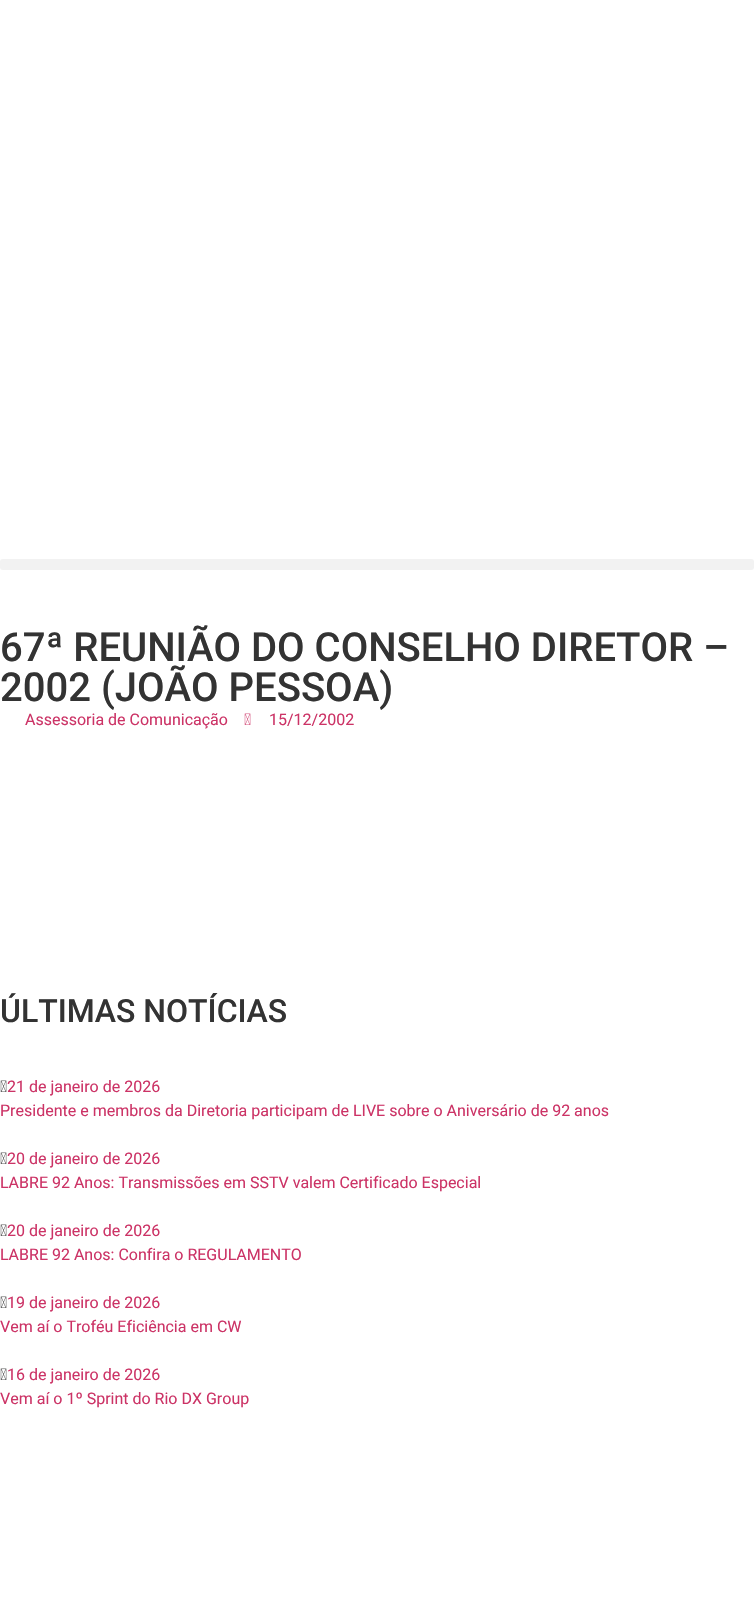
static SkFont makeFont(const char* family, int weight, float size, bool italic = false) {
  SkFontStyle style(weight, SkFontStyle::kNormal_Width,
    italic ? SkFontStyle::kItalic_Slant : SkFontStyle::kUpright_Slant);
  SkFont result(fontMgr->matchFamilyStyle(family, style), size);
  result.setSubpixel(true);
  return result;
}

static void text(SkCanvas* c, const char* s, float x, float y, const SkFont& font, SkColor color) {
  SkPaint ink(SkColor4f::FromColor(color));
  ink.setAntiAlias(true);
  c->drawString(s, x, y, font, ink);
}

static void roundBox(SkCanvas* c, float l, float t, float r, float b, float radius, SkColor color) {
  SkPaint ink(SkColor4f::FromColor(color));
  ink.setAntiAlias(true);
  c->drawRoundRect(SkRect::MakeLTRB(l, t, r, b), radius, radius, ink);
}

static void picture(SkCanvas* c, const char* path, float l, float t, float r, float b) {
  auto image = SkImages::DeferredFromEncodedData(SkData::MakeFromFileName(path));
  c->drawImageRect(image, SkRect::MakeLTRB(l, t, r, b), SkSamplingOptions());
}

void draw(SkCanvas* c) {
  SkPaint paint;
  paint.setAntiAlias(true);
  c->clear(0xffffffff);
  roundBox(c, 0, 559, 754, 570, 3, 0xfff2f2f2);
  SkFont face1 = makeFont("Roboto", 500, 40);
  text(c, "67ª REUNIÃO DO CONSELHO DIRETOR –", 0, 661, face1, 0xff333333);
  text(c, "2002 (JOÃO PESSOA)", 0, 701, face1, 0xff333333);
  SkFont face2 = makeFont("Roboto", 400, 16);
  text(c, "Assessoria de Comunicação", 25, 725, face2, 0xffcc3366);
  picture(c, "img_01.png", 244, 713, 251, 725);
  text(c, "15/12/2002", 269, 725, face2, 0xffcc3366);
  SkFont face3 = makeFont("Roboto", 500, 32);
  text(c, "ÚLTIMAS NOTÍCIAS", 0, 1022, face3, 0xff333333);
  picture(c, "img_02.png", 0, 1080, 7, 1092);
  text(c, "21 de janeiro de 2026", 7, 1092, face2, 0xffcc3366);
  text(c, "Presidente e membros da Diretoria participam de LIVE sobre o Aniversário de 92 anos", 0, 1116, face2, 0xffcc3366);
  picture(c, "img_02.png", 0, 1152, 7, 1164);
  text(c, "20 de janeiro de 2026", 7, 1164, face2, 0xffcc3366);
  text(c, "LABRE 92 Anos: Transmissões em SSTV valem Certificado Especial", 0, 1188, face2, 0xffcc3366);
  picture(c, "img_02.png", 0, 1224, 7, 1236);
  text(c, "20 de janeiro de 2026", 7, 1236, face2, 0xffcc3366);
  text(c, "LABRE 92 Anos: Confira o REGULAMENTO", 0, 1260, face2, 0xffcc3366);
  picture(c, "img_02.png", 0, 1296, 7, 1308);
  text(c, "19 de janeiro de 2026", 7, 1308, face2, 0xffcc3366);
  text(c, "Vem aí o Troféu Eficiência em CW", 0, 1332, face2, 0xffcc3366);
  picture(c, "img_02.png", 0, 1368, 7, 1380);
  text(c, "16 de janeiro de 2026", 7, 1380, face2, 0xffcc3366);
  text(c, "Vem aí o 1º Sprint do Rio DX Group", 0, 1404, face2, 0xffcc3366);
}
